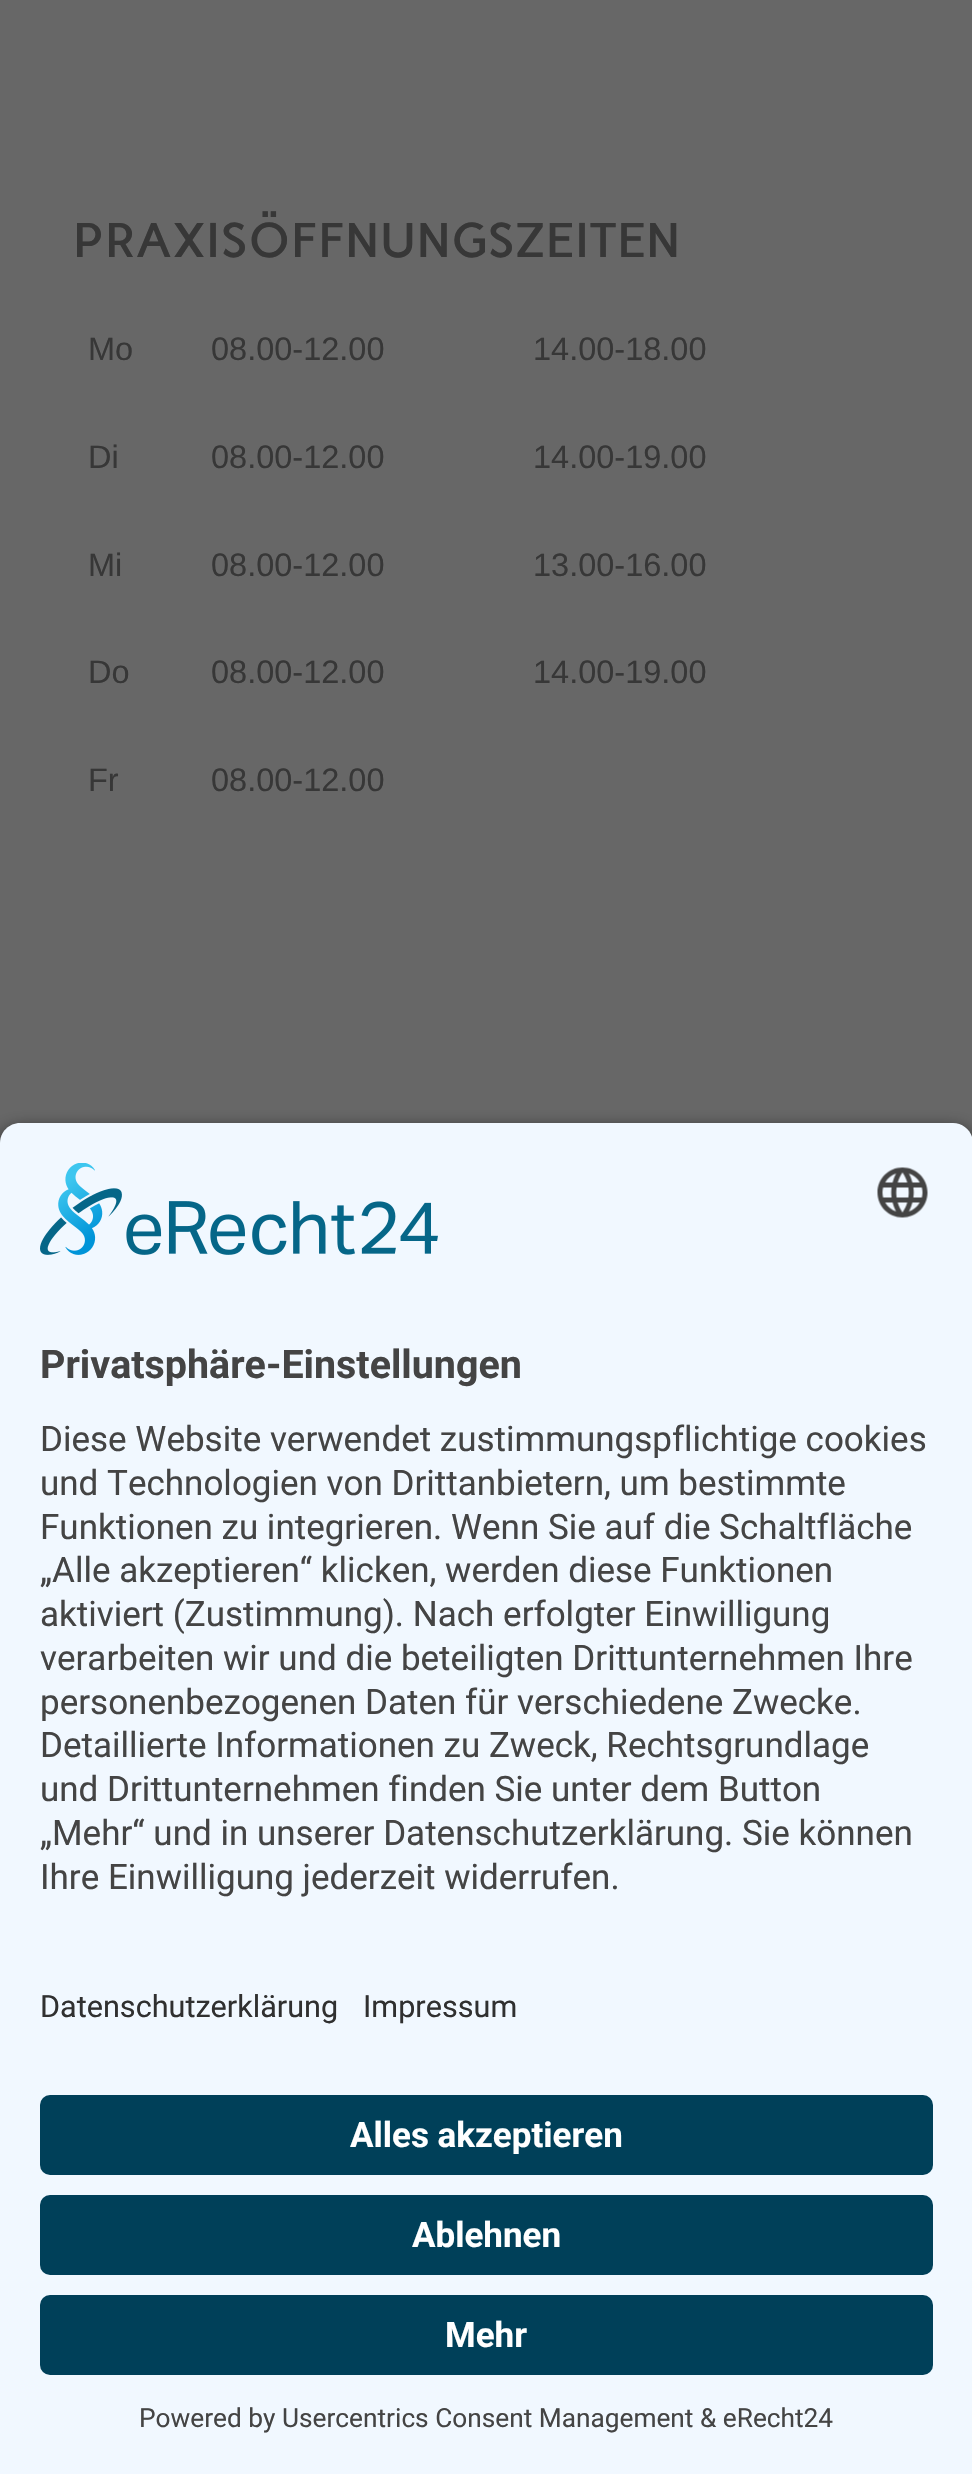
static SkFont makeFont(const char* family, int weight, float size, bool italic = false) {
  SkFontStyle style(weight, SkFontStyle::kNormal_Width,
    italic ? SkFontStyle::kItalic_Slant : SkFontStyle::kUpright_Slant);
  SkFont result(fontMgr->matchFamilyStyle(family, style), size);
  result.setSubpixel(true);
  return result;
}

static void text(SkCanvas* c, const char* s, float x, float y, const SkFont& font, SkColor color) {
  SkPaint ink(SkColor4f::FromColor(color));
  ink.setAntiAlias(true);
  c->drawString(s, x, y, font, ink);
}

static void spacedText(SkCanvas* c, const char* s, float x, float y, const SkFont& font, const SkPaint& ink, float letter, float word) {
  std::vector<SkGlyphID> glyphs(font.countText(s, strlen(s), SkTextEncoding::kUTF8));
  std::vector<float> xs(glyphs.size());
  font.textToGlyphs(s, strlen(s), SkTextEncoding::kUTF8, glyphs);
  font.getXPos(glyphs, xs, x);
  float extra = 0;
  for (size_t i = 0; i < glyphs.size(); i++) {
    xs[i] += extra;
    extra += letter + word * (glyphs[i] == font.unicharToGlyph(' '));
  }
  c->drawTextBlob(SkTextBlob::MakeFromPosHGlyphs(glyphs, xs, y, font), 0, 0, ink);
}

static void box(SkCanvas* c, float l, float t, float r, float b, SkColor color) {
  SkPaint ink(SkColor4f::FromColor(color));
  ink.setAntiAlias(true);
  c->drawRect(SkRect::MakeLTRB(l, t, r, b), ink);
}

static void roundBox(SkCanvas* c, float l, float t, float r, float b, float radius, SkColor color) {
  SkPaint ink(SkColor4f::FromColor(color));
  ink.setAntiAlias(true);
  c->drawRoundRect(SkRect::MakeLTRB(l, t, r, b), radius, radius, ink);
}

static void picture(SkCanvas* c, const char* path, float l, float t, float r, float b) {
  auto image = SkImages::DeferredFromEncodedData(SkData::MakeFromFileName(path));
  c->drawImageRect(image, SkRect::MakeLTRB(l, t, r, b), SkSamplingOptions());
}

void draw(SkCanvas* c) {
  SkPaint paint;
  paint.setAntiAlias(true);
  c->clear(0xff676767);
  SkFont face1 = makeFont("Carme", 700, 46.75f);
  paint.setColor(0xff373737);
  spacedText(c, "PRAXISÖFFNUNGSZEITEN", 73, 257, face1, paint, 2.5f, 0);
  SkFont face2 = makeFont("Liberation Sans", 400, 32.5f);
  text(c, "Mo", 88, 360, face2, 0xff373737);
  text(c, "08.00-12.00", 211, 360, face2, 0xff373737);
  text(c, "14.00-18.00", 533, 360, face2, 0xff373737);
  text(c, "Di", 88, 468, face2, 0xff373737);
  text(c, "08.00-12.00", 211, 468, face2, 0xff373737);
  text(c, "14.00-19.00", 533, 468, face2, 0xff373737);
  text(c, "Mi", 88, 576, face2, 0xff373737);
  text(c, "08.00-12.00", 211, 576, face2, 0xff373737);
  text(c, "13.00-16.00", 533, 576, face2, 0xff373737);
  text(c, "Do", 88, 683, face2, 0xff373737);
  text(c, "08.00-12.00", 211, 683, face2, 0xff373737);
  text(c, "14.00-19.00", 533, 683, face2, 0xff373737);
  text(c, "Fr", 88, 791, face2, 0xff373737);
  text(c, "08.00-12.00", 211, 791, face2, 0xff373737);
  paint.setColor(0xcc000000);
  paint.setMaskFilter(SkMaskFilter::MakeBlur(kNormal_SkBlurStyle, 9));
  c->drawRoundRect(SkRect::MakeLTRB(0, 1130, 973, 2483), 20, 20, paint);
  paint.setMaskFilter(nullptr);
  paint.setColor(0xfff1f8ff);
  c->drawPath(SkPathBuilder().moveTo(20, 1123).lineTo(953, 1123).cubicTo(964, 1123, 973, 1132, 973, 1143).lineTo(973, 1950).lineTo(0, 1950).lineTo(0, 1143).cubicTo(0, 1132, 9, 1123, 20, 1123).close().detach(), paint);
  picture(c, "img_01.png", 40, 1163, 438, 1255);
  picture(c, "img_02.png", 877, 1167, 928, 1218);
  SkFont face3 = makeFont("Roboto", 700, 39.4f);
  text(c, "Privatsphäre-Einstellungen", 40, 1378, face3, 0xff444444);
  SkFont face4 = makeFont("Roboto", 400, 35);
  text(c, "Diese Website verwendet zustimmungspflichtige cookies", 40, 1451, face4, 0xff444444);
  text(c, "und Technologien von Drittanbietern, um bestimmte", 40, 1495, face4, 0xff444444);
  text(c, "Funktionen zu integrieren. Wenn Sie auf die Schaltfläche", 40, 1539, face4, 0xff444444);
  text(c, "„Alle akzeptieren“ klicken, werden diese Funktionen", 40, 1582, face4, 0xff444444);
  text(c, "aktiviert (Zustimmung). Nach erfolgter Einwilligung", 40, 1626, face4, 0xff444444);
  text(c, "verarbeiten wir und die beteiligten Drittunternehmen Ihre", 40, 1670, face4, 0xff444444);
  text(c, "personenbezogenen Daten für verschiedene Zwecke.", 40, 1714, face4, 0xff444444);
  text(c, "Detaillierte Informationen zu Zweck, Rechtsgrundlage", 40, 1757, face4, 0xff444444);
  text(c, "und Drittunternehmen finden Sie unter dem Button", 40, 1801, face4, 0xff444444);
  text(c, "„Mehr“ und in unserer Datenschutzerklärung. Sie können", 40, 1845, face4, 0xff444444);
  text(c, "Ihre Einwilligung jederzeit widerrufen.", 40, 1889, face4, 0xff444444);
  box(c, 0, 1950, 972, 2474, 0xfff1f8ff);
  SkFont face5 = makeFont("Roboto", 400, 30.6f);
  text(c, "Datenschutzerklärung", 40, 2017, face5, 0xff303030);
  text(c, "Impressum", 363, 2017, face5, 0xff303030);
  roundBox(c, 40, 2095, 933, 2175, 10, 0xff004059);
  SkFont face6 = makeFont("Roboto", 700, 35);
  text(c, "Alles akzeptieren", 350, 2147, face6, 0xffffffff);
  roundBox(c, 40, 2195, 933, 2275, 10, 0xff004059);
  text(c, "Ablehnen", 412, 2247, face6, 0xffffffff);
  roundBox(c, 40, 2295, 933, 2375, 10, 0xff004059);
  text(c, "Mehr", 445, 2347, face6, 0xffffffff);
  SkFont face7 = makeFont("Roboto", 400, 26.25f);
  text(c, "Powered by Usercentrics Consent Management & eRecht24", 139, 2427, face7, 0xff444444);
}
